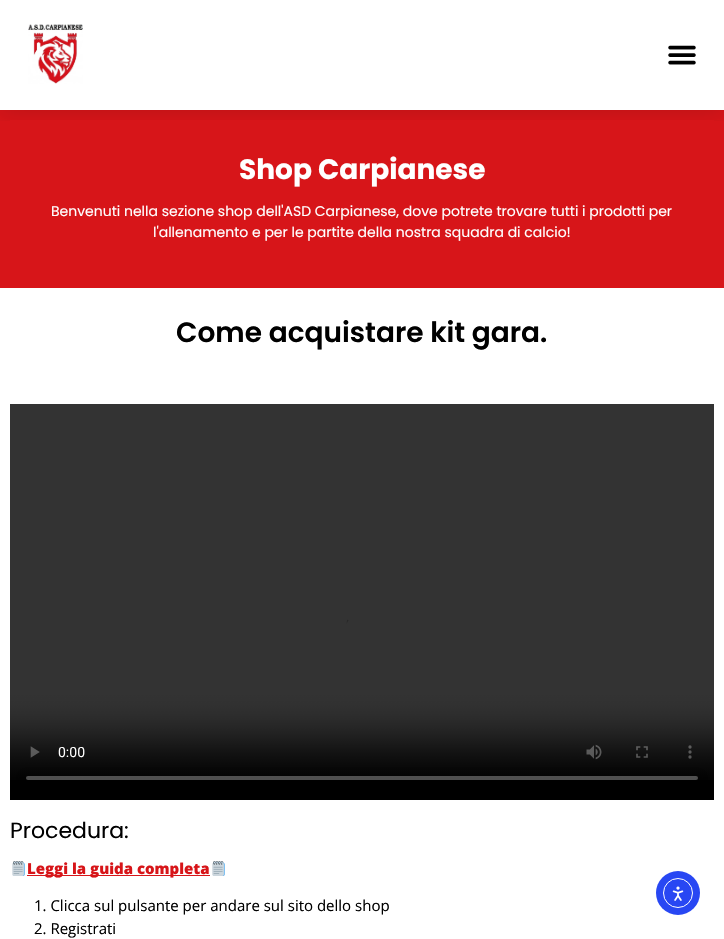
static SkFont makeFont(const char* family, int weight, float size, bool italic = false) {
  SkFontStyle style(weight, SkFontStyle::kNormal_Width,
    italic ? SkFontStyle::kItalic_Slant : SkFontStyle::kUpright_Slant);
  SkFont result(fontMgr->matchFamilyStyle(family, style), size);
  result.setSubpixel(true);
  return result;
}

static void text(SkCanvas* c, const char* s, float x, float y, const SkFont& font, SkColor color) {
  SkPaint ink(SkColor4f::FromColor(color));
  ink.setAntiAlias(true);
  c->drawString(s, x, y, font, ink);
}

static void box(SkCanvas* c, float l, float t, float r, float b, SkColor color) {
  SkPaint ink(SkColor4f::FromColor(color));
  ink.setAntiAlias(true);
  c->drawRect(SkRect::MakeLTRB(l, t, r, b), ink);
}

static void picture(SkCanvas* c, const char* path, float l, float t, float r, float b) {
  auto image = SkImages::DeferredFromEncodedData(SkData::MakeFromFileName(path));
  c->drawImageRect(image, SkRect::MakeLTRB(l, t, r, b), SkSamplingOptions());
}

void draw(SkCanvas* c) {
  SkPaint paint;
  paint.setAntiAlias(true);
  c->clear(0xffffffff);
  box(c, 0, 110, 724, 288, 0xffd71519);
  c->save();
  c->clipRect(SkRect::MakeLTRB(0, 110, 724, 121));
  paint.setColor(0x26000000);
  paint.setMaskFilter(SkMaskFilter::MakeBlur(kNormal_SkBlurStyle, 12));
  c->drawRect(SkRect::MakeLTRB(0, 0, 724, 110), paint);
  paint.setMaskFilter(nullptr);
  c->restore();
  picture(c, "img_01.png", 28, 24, 83, 84);
  picture(c, "img_02.png", 668, 45, 696, 65);
  box(c, 10, 120, 714, 127, 0xffd71519);
  SkFont face1 = makeFont("Poppins", 700, 28);
  text(c, "Shop Carpianese", 239, 179, face1, 0xffffffff);
  SkFont face2 = makeFont("Poppins", 400, 14);
  text(c, "Benvenuti nella sezione shop dell'ASD Carpianese, dove potrete trovare tutti i prodotti per", 51, 216, face2, 0xffffffff);
  text(c, "l'allenamento e per le partite della nostra squadra di calcio!", 153, 237, face2, 0xffffffff);
  SkFont face3 = makeFont("Poppins", 600, 28);
  text(c, "Come acquistare kit gara.", 176, 342, face3, 0xff000000);
  box(c, 10, 780, 714, 800, 0xff000000);
  picture(c, "img_03.png", 10, 404, 714, 780);
  SkFont face4 = makeFont("Poppins", 400, 22);
  text(c, "Procedura:", 10, 838, face4, 0xff000000);
  picture(c, "img_04.png", 12, 861, 25, 876);
  box(c, 27, 875, 210, 876, 0xffd71519);
  SkFont face5 = makeFont("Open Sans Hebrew", 800, 15);
  text(c, "Leggi la guida completa", 27, 874, face5, 0xffd71519);
  picture(c, "img_04.png", 212, 861, 225, 876);
  SkFont face6 = makeFont("Open Sans", 400, 15);
  text(c, "1. Clicca sul pulsante per andare sul sito dello shop", 34, 911, face6, 0xff000000);
  text(c, "2. Registrati", 34, 934, face6, 0xff000000);
  paint.setColor(0xff2847f3);
  c->drawCircle(678, 893, 22, paint);
  paint.setStyle(SkPaint::kStroke_Style);
  paint.setStrokeWidth(1);
  paint.setColor(0xffffffff);
  c->drawCircle(678, 893, 14.5f, paint);
  picture(c, "img_05.png", 672, 886, 684, 901);
}
